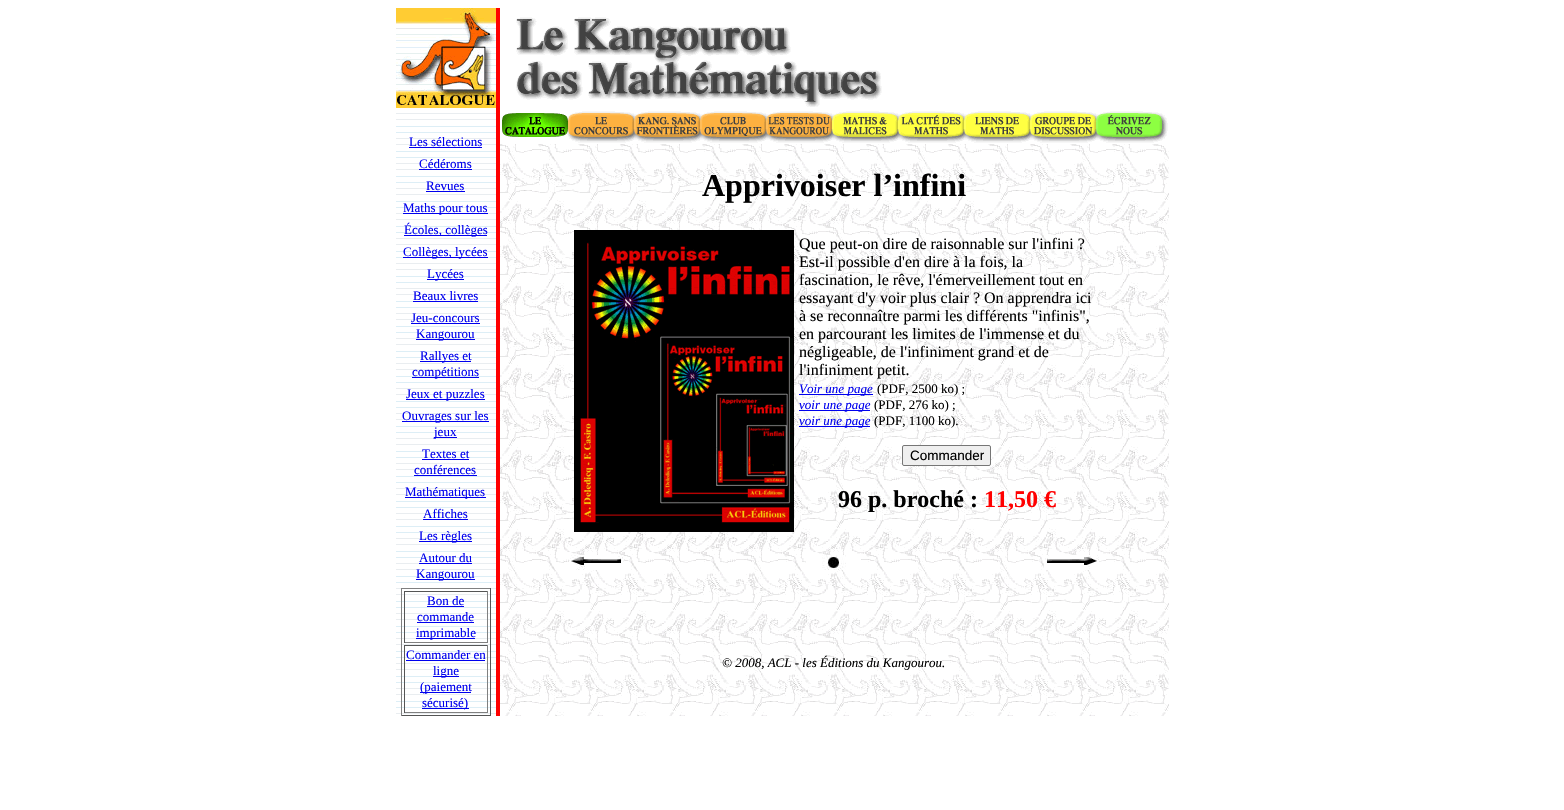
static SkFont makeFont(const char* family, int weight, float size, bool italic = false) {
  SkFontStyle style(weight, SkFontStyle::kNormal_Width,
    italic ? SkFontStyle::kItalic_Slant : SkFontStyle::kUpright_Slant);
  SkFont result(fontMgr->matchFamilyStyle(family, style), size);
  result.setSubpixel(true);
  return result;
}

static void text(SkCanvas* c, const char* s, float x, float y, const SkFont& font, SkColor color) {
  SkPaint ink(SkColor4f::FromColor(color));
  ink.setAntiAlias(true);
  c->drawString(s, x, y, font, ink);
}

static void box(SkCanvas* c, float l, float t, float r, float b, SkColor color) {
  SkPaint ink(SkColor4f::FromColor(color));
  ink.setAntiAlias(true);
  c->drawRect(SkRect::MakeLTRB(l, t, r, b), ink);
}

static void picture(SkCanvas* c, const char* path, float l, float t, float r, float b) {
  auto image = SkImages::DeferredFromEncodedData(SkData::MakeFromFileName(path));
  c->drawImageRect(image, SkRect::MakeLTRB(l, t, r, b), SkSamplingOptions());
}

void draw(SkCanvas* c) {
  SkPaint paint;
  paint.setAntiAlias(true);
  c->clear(0xffffffff);
  picture(c, "img_01.png", 396, 8, 496, 108);
  box(c, 496, 8, 500, 716, 0xffff0000);
  picture(c, "img_02.png", 516, 17, 882, 107);
  picture(c, "img_03.png", 575, 111, 1158, 113);
  picture(c, "img_04.png", 502, 113, 568, 137);
  picture(c, "img_05.png", 568, 113, 634, 137);
  picture(c, "img_06.png", 634, 113, 700, 137);
  picture(c, "img_07.png", 700, 113, 766, 137);
  picture(c, "img_08.png", 766, 113, 832, 137);
  picture(c, "img_09.png", 832, 113, 898, 137);
  picture(c, "img_10.png", 898, 113, 964, 137);
  picture(c, "img_11.png", 964, 113, 1030, 137);
  picture(c, "img_12.png", 1030, 113, 1096, 137);
  picture(c, "img_13.png", 1096, 113, 1162, 137);
  picture(c, "img_14.png", 1162, 114, 1168, 140);
  picture(c, "img_15.png", 569, 137, 1162, 143);
  picture(c, "img_16.png", 396, 113, 496, 714);
  SkFont face1 = makeFont("Liberation Serif", 400, 13);
  text(c, "Les sélections", 409, 146, face1, 0xff0000ee);
  box(c, 409, 147, 482, 148, 0xff0000ee);
  text(c, "Cédéroms", 419, 168, face1, 0xff0000ee);
  box(c, 419, 169, 472, 170, 0xff0000ee);
  text(c, "Revues", 426, 190, face1, 0xff0000ee);
  box(c, 426, 191, 465, 192, 0xff0000ee);
  box(c, 403, 213, 488, 214, 0xff0000ee);
  text(c, "Maths pour tous", 403, 212, face1, 0xff0000ee);
  box(c, 404, 235, 487, 236, 0xff0000ee);
  text(c, "Écoles, collèges", 404, 234, face1, 0xff0000ee);
  box(c, 403, 257, 488, 258, 0xff0000ee);
  text(c, "Collèges, lycées", 403, 256, face1, 0xff0000ee);
  box(c, 427, 279, 464, 280, 0xff0000ee);
  text(c, "Lycées", 427, 278, face1, 0xff0000ee);
  text(c, "Beaux livres", 413, 300, face1, 0xff0000ee);
  box(c, 413, 301, 478, 302, 0xff0000ee);
  text(c, "Jeu-concours", 411, 322, face1, 0xff0000ee);
  box(c, 411, 323, 480, 324, 0xff0000ee);
  box(c, 416, 339, 475, 340, 0xff0000ee);
  text(c, "Kangourou", 416, 338, face1, 0xff0000ee);
  box(c, 420, 361, 471, 362, 0xff0000ee);
  text(c, "Rallyes et", 420, 360, face1, 0xff0000ee);
  box(c, 412, 377, 479, 378, 0xff0000ee);
  text(c, "compétitions", 412, 376, face1, 0xff0000ee);
  box(c, 406, 399, 485, 400, 0xff0000ee);
  text(c, "Jeux et puzzles", 406, 398, face1, 0xff0000ee);
  box(c, 402, 421, 489, 422, 0xff0000ee);
  text(c, "Ouvrages sur les", 402, 420, face1, 0xff0000ee);
  box(c, 434, 437, 457, 438, 0xff0000ee);
  text(c, "jeux", 434, 436, face1, 0xff0000ee);
  text(c, "Textes et", 422, 458, face1, 0xff0000ee);
  box(c, 422, 459, 469, 460, 0xff0000ee);
  text(c, "conférences", 414, 474, face1, 0xff0000ee);
  box(c, 414, 475, 477, 476, 0xff0000ee);
  box(c, 405, 497, 486, 498, 0xff0000ee);
  text(c, "Mathématiques", 405, 496, face1, 0xff0000ee);
  text(c, "Affiches", 423, 518, face1, 0xff0000ee);
  box(c, 423, 519, 468, 520, 0xff0000ee);
  box(c, 419, 541, 472, 542, 0xff0000ee);
  text(c, "Les règles", 419, 540, face1, 0xff0000ee);
  text(c, "Autour du", 419, 562, face1, 0xff0000ee);
  box(c, 419, 563, 472, 564, 0xff0000ee);
  box(c, 416, 579, 475, 580, 0xff0000ee);
  text(c, "Kangourou", 416, 578, face1, 0xff0000ee);
  box(c, 401, 588, 491, 589, 0xff808080);
  box(c, 490, 588, 491, 716, 0xff555555);
  box(c, 401, 715, 491, 716, 0xff555555);
  box(c, 401, 588, 402, 716, 0xff808080);
  box(c, 404, 591, 488, 592, 0xff555555);
  box(c, 487, 591, 488, 643, 0xff808080);
  box(c, 404, 642, 488, 643, 0xff808080);
  box(c, 404, 591, 405, 643, 0xff555555);
  text(c, "Bon de", 427, 605, face1, 0xff0000ee);
  box(c, 427, 606, 464, 607, 0xff0000ee);
  text(c, "commande", 417, 621, face1, 0xff0000ee);
  box(c, 417, 622, 474, 623, 0xff0000ee);
  box(c, 416, 638, 475, 639, 0xff0000ee);
  text(c, "imprimable", 416, 637, face1, 0xff0000ee);
  box(c, 404, 645, 488, 646, 0xff555555);
  box(c, 487, 645, 488, 713, 0xff808080);
  box(c, 404, 712, 488, 713, 0xff808080);
  box(c, 404, 645, 405, 713, 0xff555555);
  text(c, "Commander en", 406, 659, face1, 0xff0000ee);
  box(c, 406, 660, 485, 661, 0xff0000ee);
  box(c, 433, 676, 459, 677, 0xff0000ee);
  text(c, "ligne", 433, 675, face1, 0xff0000ee);
  box(c, 420, 692, 471, 693, 0xff0000ee);
  text(c, "(paiement", 420, 691, face1, 0xff0000ee);
  box(c, 422, 708, 469, 709, 0xff0000ee);
  text(c, "sécurisé)", 422, 707, face1, 0xff0000ee);
  picture(c, "img_17.png", 500, 144, 1169, 655);
  SkFont face2 = makeFont("Liberation Serif", 700, 32);
  text(c, "Apprivoiser l’infini", 702, 196, face2, 0xff000000);
  paint.setStyle(SkPaint::kStroke_Style);
  paint.setStrokeWidth(1);
  paint.setColor(0xff000000);
  c->drawRect(SkRect::MakeLTRB(574.5f, 230.5f, 793.5f, 531.5f), paint);
  picture(c, "img_18.png", 575, 231, 793, 531);
  SkFont face3 = makeFont("Liberation Serif", 400, 16);
  text(c, "Que peut-on dire de raisonnable sur l'infini ?", 799, 249, face3, 0xff000000);
  text(c, "Est-il possible d'en dire à la fois, la", 799, 267, face3, 0xff000000);
  text(c, "fascination, le rêve, l'émerveillement tout en", 799, 285, face3, 0xff000000);
  text(c, "essayant d'y voir plus clair ? On apprendra ici", 799, 303, face3, 0xff000000);
  text(c, "à se reconnaître parmi les différents \"infinis\",", 799, 321, face3, 0xff000000);
  text(c, "en parcourant les limites de l'immense et du", 799, 339, face3, 0xff000000);
  text(c, "négligeable, de l'infiniment grand et de", 799, 357, face3, 0xff000000);
  text(c, "l'infiniment petit.", 799, 375, face3, 0xff000000);
  box(c, 799, 394, 873, 395, 0xff0000ee);
  SkFont face4 = makeFont("Liberation Serif", 400, 13, true);
  text(c, "Voir une page", 799, 393, face4, 0xff0000ee);
  text(c, "(PDF, 2500 ko) ;", 877, 393, face1, 0xff000000);
  box(c, 799, 410, 870, 411, 0xff0000ee);
  text(c, "voir une page", 799, 409, face4, 0xff0000ee);
  text(c, "(PDF, 276 ko) ;", 874, 409, face1, 0xff000000);
  box(c, 799, 426, 870, 427, 0xff0000ee);
  text(c, "voir une page", 799, 425, face4, 0xff0000ee);
  text(c, "(PDF, 1100 ko).", 874, 425, face1, 0xff000000);
  paint.setStyle(SkPaint::kFill_Style);
  paint.setColor(0xffefefef);
  c->drawRoundRect(SkRect::MakeLTRB(902.5f, 445.5f, 990.5f, 465.5f), 1.5f, 1.5f, paint);
  paint.setStyle(SkPaint::kStroke_Style);
  paint.setColor(0xff767676);
  c->drawRoundRect(SkRect::MakeLTRB(902.5f, 445.5f, 990.5f, 465.5f), 1.5f, 1.5f, paint);
  SkFont face5 = makeFont("Liberation Sans", 400, 13.5f);
  text(c, "Commander", 910, 460, face5, 0xff000000);
  SkFont face6 = makeFont("Liberation Serif", 700, 24);
  text(c, "96 p. broché :", 838, 507, face6, 0xff000000);
  text(c, "11,50 €", 984, 507, face6, 0xffff0000);
  picture(c, "img_19.png", 569, 555, 624, 570);
  picture(c, "img_20.png", 806, 555, 861, 570);
  picture(c, "img_21.png", 1044, 555, 1099, 570);
  picture(c, "img_22.png", 500, 655, 1169, 716);
  text(c, "© 2008, ACL - les Éditions du Kangourou.", 722, 667, face4, 0xff000000);
}
